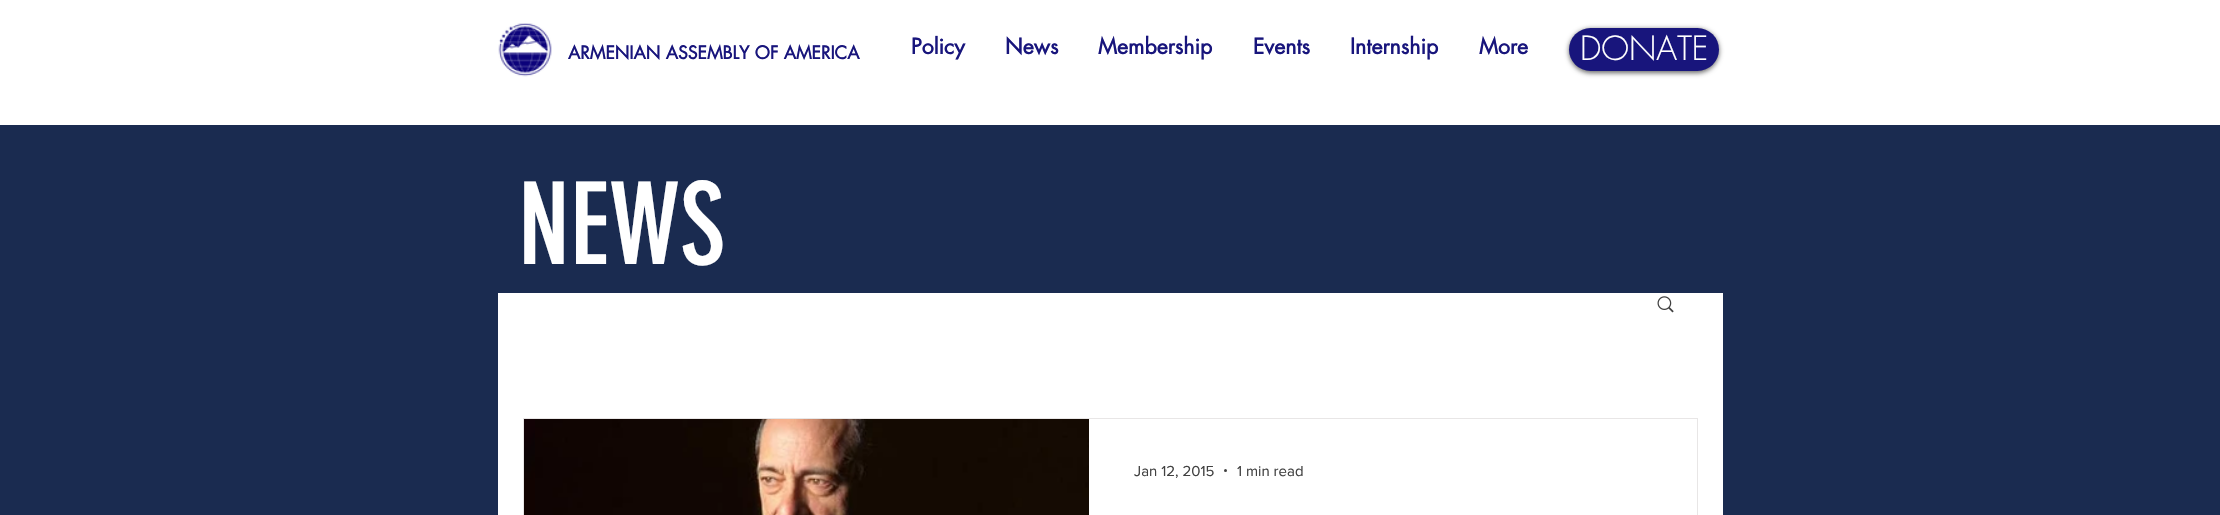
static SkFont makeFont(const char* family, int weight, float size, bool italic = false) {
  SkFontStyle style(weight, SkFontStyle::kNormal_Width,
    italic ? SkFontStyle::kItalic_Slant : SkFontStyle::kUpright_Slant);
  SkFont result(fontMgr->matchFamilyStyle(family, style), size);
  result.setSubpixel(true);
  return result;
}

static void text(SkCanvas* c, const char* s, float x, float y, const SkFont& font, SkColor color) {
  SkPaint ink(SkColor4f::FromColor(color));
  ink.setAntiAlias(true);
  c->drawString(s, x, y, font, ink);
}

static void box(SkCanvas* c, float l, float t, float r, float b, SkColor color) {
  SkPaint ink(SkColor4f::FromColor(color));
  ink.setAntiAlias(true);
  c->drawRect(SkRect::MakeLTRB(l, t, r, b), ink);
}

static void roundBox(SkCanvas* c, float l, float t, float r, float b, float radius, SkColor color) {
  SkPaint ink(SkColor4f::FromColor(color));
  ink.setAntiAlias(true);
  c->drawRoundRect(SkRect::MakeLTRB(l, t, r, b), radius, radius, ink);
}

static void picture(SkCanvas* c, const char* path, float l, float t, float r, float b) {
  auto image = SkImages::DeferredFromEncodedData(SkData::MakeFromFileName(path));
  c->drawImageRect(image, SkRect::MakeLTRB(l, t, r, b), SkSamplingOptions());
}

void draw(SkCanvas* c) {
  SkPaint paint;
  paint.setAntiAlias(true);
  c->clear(0xff1a2b50);
  box(c, 0, 0, 2220, 125, 0xffffffff);
  picture(c, "img_01.png", 498, 23, 552, 77);
  SkFont face1 = makeFont("futura", 700, 17.5f);
  text(c, "ARMENIAN ASSEMBLY OF AMERICA", 568, 59, face1, 0xff18157c);
  SkFont face2 = makeFont("futura", 700, 21.25f);
  text(c, "Policy", 911, 54, face2, 0xff18157c);
  text(c, "News", 1005, 54, face2, 0xff18157c);
  text(c, "Membership", 1098, 54, face2, 0xff18157c);
  text(c, "Events", 1253, 54, face2, 0xff18157c);
  text(c, "Internship", 1350, 54, face2, 0xff18157c);
  text(c, "More", 1479, 54, face2, 0xff18157c);
  paint.setColor(0x99000000);
  paint.setMaskFilter(SkMaskFilter::MakeBlur(kNormal_SkBlurStyle, 2.5f));
  c->drawRoundRect(SkRect::MakeLTRB(1569, 29, 1719, 73), 22, 22, paint);
  paint.setMaskFilter(nullptr);
  roundBox(c, 1569, 28, 1719, 71, 21.5f, 0xff18157c);
  SkFont face3 = makeFont("futura", 300, 32.5f);
  text(c, "DONATE", 1580, 60, face3, 0xffffffff);
  SkFont face4 = makeFont("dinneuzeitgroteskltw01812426", 400, 112);
  text(c, "NEWS", 518, 264, face4, 0xffffffff);
  box(c, 498, 293, 1723, 515, 0xffffffff);
  picture(c, "img_02.png", 1657, 296, 1674, 313);
  paint.setStyle(SkPaint::kStroke_Style);
  paint.setStrokeWidth(1);
  paint.setColor(0xffe8e6e6);
  c->drawRect(SkRect::MakeLTRB(523.5f, 418.5f, 1697.5f, 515.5f), paint);
  picture(c, "img_03.png", 524, 419, 535, 515);
  picture(c, "img_04.png", 535, 419, 1089, 515);
  SkFont face5 = makeFont("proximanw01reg", 400, 15);
  text(c, "Jan 12, 2015", 1134, 476, face5, 0xff414141);
  paint.setStyle(SkPaint::kFill_Style);
  paint.setColor(0xff414141);
  c->drawCircle(1225.5f, 470.5f, 1.5f, paint);
  text(c, "1 min read", 1237, 476, face5, 0xff414141);
}
